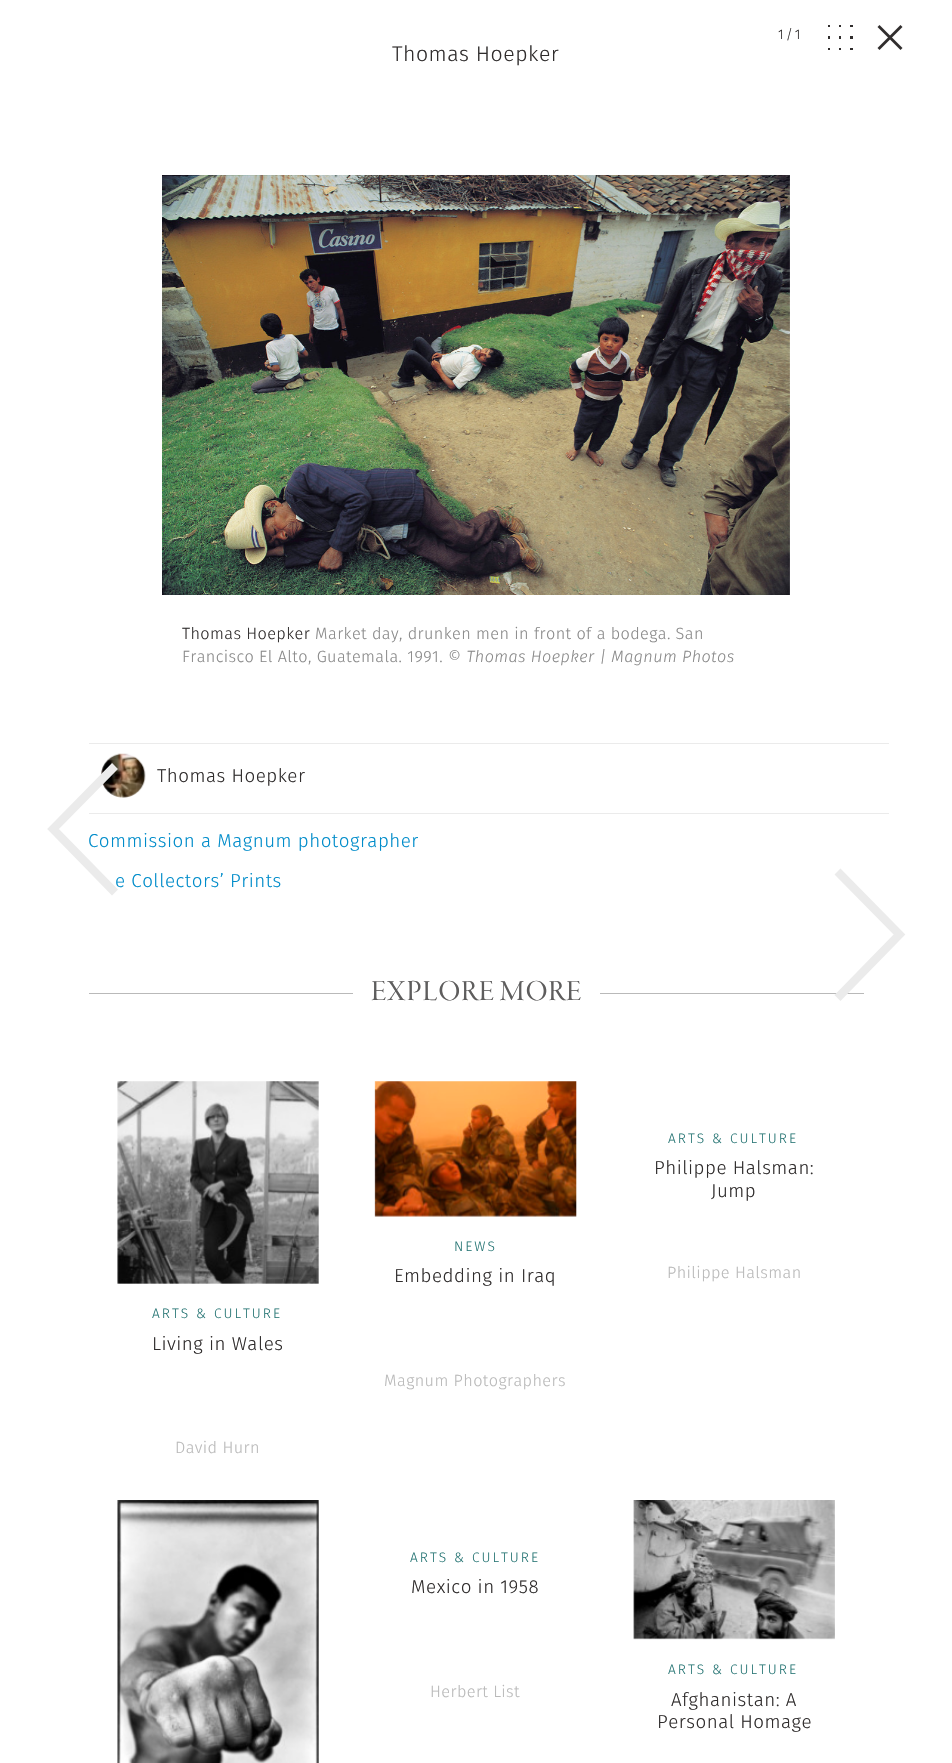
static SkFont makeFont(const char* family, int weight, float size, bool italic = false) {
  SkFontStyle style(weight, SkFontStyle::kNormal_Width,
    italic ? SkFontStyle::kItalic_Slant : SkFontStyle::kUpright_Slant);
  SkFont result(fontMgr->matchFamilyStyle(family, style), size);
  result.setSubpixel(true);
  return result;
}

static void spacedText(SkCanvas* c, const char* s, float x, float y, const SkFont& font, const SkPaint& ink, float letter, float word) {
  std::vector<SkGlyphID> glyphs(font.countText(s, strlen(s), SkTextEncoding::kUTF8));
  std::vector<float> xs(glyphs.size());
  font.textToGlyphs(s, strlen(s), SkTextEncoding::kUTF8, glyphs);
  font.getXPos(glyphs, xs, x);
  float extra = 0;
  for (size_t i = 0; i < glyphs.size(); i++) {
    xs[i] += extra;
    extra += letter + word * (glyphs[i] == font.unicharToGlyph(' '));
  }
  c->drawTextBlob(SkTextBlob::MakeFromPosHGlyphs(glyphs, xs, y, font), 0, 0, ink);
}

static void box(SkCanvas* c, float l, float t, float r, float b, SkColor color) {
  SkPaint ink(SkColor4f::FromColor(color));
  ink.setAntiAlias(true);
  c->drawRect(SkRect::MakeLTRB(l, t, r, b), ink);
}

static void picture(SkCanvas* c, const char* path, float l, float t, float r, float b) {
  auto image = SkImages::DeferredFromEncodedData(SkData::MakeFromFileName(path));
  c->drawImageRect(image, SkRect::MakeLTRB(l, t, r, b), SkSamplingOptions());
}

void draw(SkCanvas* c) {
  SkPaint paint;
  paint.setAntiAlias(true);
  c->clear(0xffffffff);
  SkFont face1 = makeFont("Fira Sans", 300, 13.75f);
  paint.setColor(0xff302d2d);
  spacedText(c, "1/1", 778, 39, face1, paint, 2, 0);
  picture(c, "img_01.png", 828, 25, 853, 50);
  c->drawPath(SkPathBuilder().moveTo(879.5f, 25).lineTo(902.5f, 48).lineTo(900.5f, 50).lineTo(877.5f, 27).close().detach(), paint);
  c->drawPath(SkPathBuilder().moveTo(877.5f, 48).lineTo(900.5f, 25).lineTo(902.5f, 27).lineTo(879.5f, 50).close().detach(), paint);
  SkFont face2 = makeFont("Fira Sans", 300, 21.25f);
  spacedText(c, "Thomas Hoepker", 392, 61, face2, paint, 0.5f, 0);
  picture(c, "img_03.png", 101, 753, 146, 798);
  box(c, 89, 813, 889, 814, 0xffebebeb);
  SkFont face3 = makeFont("Fira Sans", 300, 18.75f);
  paint.setColor(0xff008cca);
  spacedText(c, "Commission a Magnum photographer", 88, 847, face3, paint, 0.5f, 0);
  spacedText(c, "e Collectors’ Prints", 115, 887, face3, paint, 0.5f, 0);
  paint.setStyle(SkPaint::kStroke_Style);
  paint.setStrokeWidth(8.3f);
  paint.setColor(0xffebebeb);
  c->drawPath(SkPathBuilder().moveTo(115, 766).lineTo(53, 829).lineTo(115, 892.5f).detach(), paint);
  picture(c, "img_02.png", 162, 175, 790, 595);
  SkFont face4 = makeFont("Fira Sans", 300, 16.25f);
  paint.setStyle(SkPaint::kFill_Style);
  paint.setColor(0xff302d2d);
  spacedText(c, "Thomas Hoepker", 182, 639, face4, paint, 0.4f, 0);
  paint.setColor(0xff898989);
  spacedText(c, "Market day, drunken men in front of a bodega. San", 315, 639, face4, paint, 0.4f, 0);
  spacedText(c, "Francisco El Alto, Guatemala. 1991.", 182, 662, face4, paint, 0.4f, 0);
  SkFont face5 = makeFont("Fira Sans", 300, 16.25f, true);
  spacedText(c, "© Thomas Hoepker | Magnum Photos", 448, 662, face5, paint, 0.4f, 0);
  box(c, 89, 743, 889, 744, 0xffebebeb);
  paint.setColor(0xff302d2d);
  spacedText(c, "Thomas Hoepker", 157, 782, face3, paint, 0.5f, 0);
  box(c, 89, 993, 864, 994, 0xffb9b9b9);
  box(c, 353, 993, 600, 994, 0xffffffff);
  SkFont face6 = makeFont("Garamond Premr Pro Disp", 400, 30);
  paint.setColor(0xff5e5d5d);
  spacedText(c, "EXPLORE MORE", 371, 1000, face6, paint, 0.75f, 0);
  paint.setColor(0xff287675);
  spacedText(c, "ARTS & CULTURE", 668, 1143, face1, paint, 2, 0);
  paint.setColor(0xff302d2d);
  spacedText(c, "Philippe Halsman:", 654, 1174, face3, paint, 0.5f, 0);
  spacedText(c, "Jump", 711, 1197, face3, paint, 0.5f, 0);
  paint.setColor(0xffb9b9b9);
  spacedText(c, "Philippe Halsman", 667, 1278, face4, paint, 0.4f, 0);
  picture(c, "img_04.png", 117, 1081, 319, 1284);
  paint.setColor(0xff287675);
  spacedText(c, "ARTS & CULTURE", 152, 1318, face1, paint, 2, 0);
  paint.setColor(0xff302d2d);
  spacedText(c, "Living in Wales", 152, 1350, face3, paint, 0.5f, 0);
  paint.setColor(0xffb9b9b9);
  spacedText(c, "David Hurn", 175, 1453, face4, paint, 0.4f, 0);
  picture(c, "img_05.png", 374, 1081, 577, 1217);
  paint.setColor(0xff287675);
  spacedText(c, "NEWS", 454, 1251, face1, paint, 2, 0);
  paint.setColor(0xff302d2d);
  spacedText(c, "Embedding in Iraq", 394, 1282, face3, paint, 0.5f, 0);
  paint.setColor(0xffb9b9b9);
  spacedText(c, "Magnum Photographers", 384, 1386, face4, paint, 0.4f, 0);
  picture(c, "img_06.png", 117, 1500, 319, 1763);
  paint.setColor(0xff287675);
  spacedText(c, "ARTS & CULTURE", 410, 1562, face1, paint, 2, 0);
  paint.setColor(0xff302d2d);
  spacedText(c, "Mexico in 1958", 411, 1593, face3, paint, 0.5f, 0);
  paint.setColor(0xffb9b9b9);
  spacedText(c, "Herbert List", 430, 1697, face4, paint, 0.4f, 0);
  picture(c, "img_07.png", 633, 1500, 835, 1640);
  paint.setColor(0xff287675);
  spacedText(c, "ARTS & CULTURE", 668, 1674, face1, paint, 2, 0);
  paint.setColor(0xff302d2d);
  spacedText(c, "Afghanistan: A", 671, 1706, face3, paint, 0.5f, 0);
  spacedText(c, "Personal Homage", 657, 1728, face3, paint, 0.5f, 0);
  paint.setStyle(SkPaint::kStroke_Style);
  paint.setColor(0xffebebeb);
  c->drawPath(SkPathBuilder().moveTo(837.5f, 998).lineTo(899.5f, 934.5f).lineTo(837.5f, 871.5f).detach(), paint);
}
